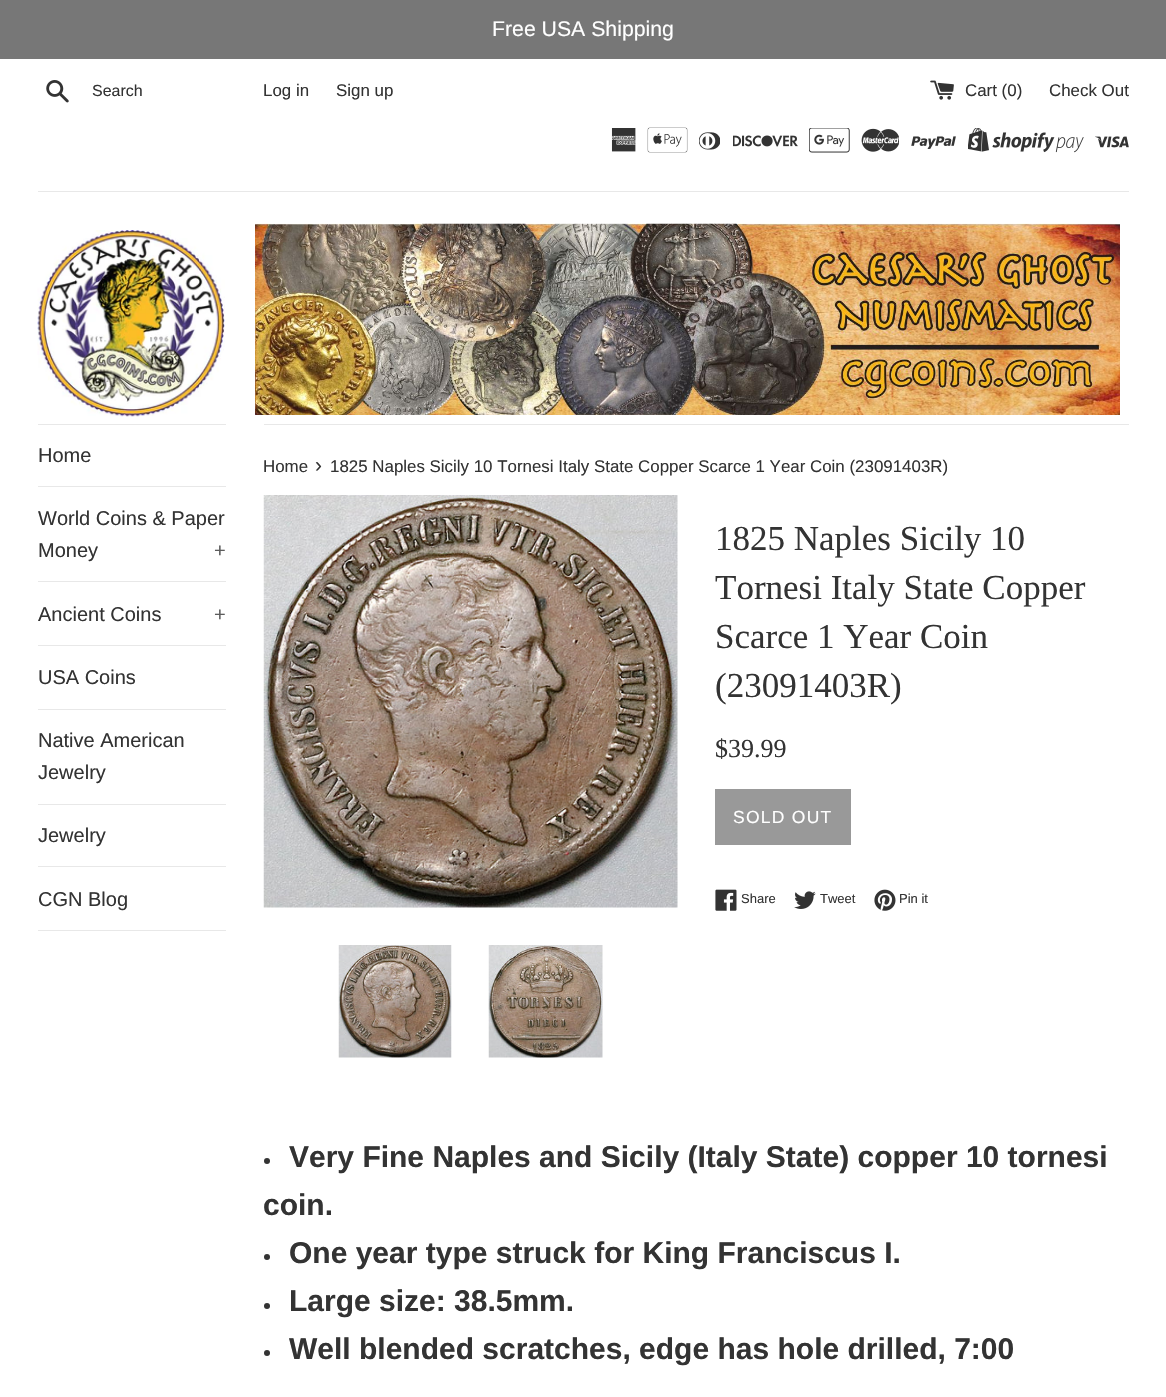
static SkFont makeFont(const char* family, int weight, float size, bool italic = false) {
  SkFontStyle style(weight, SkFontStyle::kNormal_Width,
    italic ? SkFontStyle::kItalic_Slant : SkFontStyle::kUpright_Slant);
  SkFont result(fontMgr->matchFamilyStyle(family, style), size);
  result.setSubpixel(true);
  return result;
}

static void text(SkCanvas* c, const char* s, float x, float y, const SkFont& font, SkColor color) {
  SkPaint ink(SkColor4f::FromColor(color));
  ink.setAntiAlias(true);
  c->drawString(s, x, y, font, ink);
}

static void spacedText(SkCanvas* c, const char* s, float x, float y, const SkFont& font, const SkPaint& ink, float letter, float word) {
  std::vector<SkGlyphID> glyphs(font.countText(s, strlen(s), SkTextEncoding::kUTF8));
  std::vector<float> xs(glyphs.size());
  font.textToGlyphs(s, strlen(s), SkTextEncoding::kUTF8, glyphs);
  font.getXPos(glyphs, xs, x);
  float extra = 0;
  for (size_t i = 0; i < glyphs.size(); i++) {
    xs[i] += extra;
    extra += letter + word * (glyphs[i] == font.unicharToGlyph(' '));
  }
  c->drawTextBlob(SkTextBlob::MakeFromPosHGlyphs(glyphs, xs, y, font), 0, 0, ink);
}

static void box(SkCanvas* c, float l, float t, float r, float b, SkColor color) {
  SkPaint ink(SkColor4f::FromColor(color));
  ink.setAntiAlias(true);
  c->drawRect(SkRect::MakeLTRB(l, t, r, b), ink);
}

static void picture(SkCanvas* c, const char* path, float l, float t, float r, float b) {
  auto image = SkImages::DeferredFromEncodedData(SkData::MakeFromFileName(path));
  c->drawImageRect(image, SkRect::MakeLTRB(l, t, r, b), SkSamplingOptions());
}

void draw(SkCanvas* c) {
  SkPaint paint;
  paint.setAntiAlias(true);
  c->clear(0xffffffff);
  box(c, 0, 0, 1166, 59, 0xff777777);
  SkFont face1 = makeFont("Liberation Sans", 400, 21.25f);
  text(c, "Free USA Shipping", 492, 36, face1, 0xffffffff);
  picture(c, "img_01.png", 46, 80, 69, 103);
  SkFont face2 = makeFont("Liberation Sans", 400, 16);
  text(c, "Search", 92, 96, face2, 0xff333333);
  SkFont face3 = makeFont("Liberation Sans", 400, 16.9f);
  text(c, "Log in", 263, 96, face3, 0xff333333);
  text(c, "Sign up", 336, 96, face3, 0xff333333);
  picture(c, "img_02.png", 930, 80, 954, 100);
  text(c, "Cart (0)", 965, 96, face3, 0xff333333);
  text(c, "Check Out", 1049, 96, face3, 0xff333333);
  picture(c, "img_03.png", 611, 128, 636, 152);
  picture(c, "img_04.png", 647, 127, 688, 153);
  picture(c, "img_05.png", 699, 132, 720, 150);
  picture(c, "img_06.png", 733, 135, 798, 147);
  picture(c, "img_07.png", 809, 128, 850, 153);
  picture(c, "img_08.png", 861, 128, 899, 152);
  picture(c, "img_09.png", 911, 136, 956, 149);
  picture(c, "img_10.png", 968, 128, 1084, 153);
  picture(c, "img_11.png", 1095, 136, 1129, 148);
  box(c, 38, 191, 1129, 192, 0xffe8e8e8);
  picture(c, "img_12.png", 37, 230, 225, 417);
  picture(c, "img_13.png", 255, 223, 1120, 415);
  box(c, 38, 424, 226, 425, 0xffe8e8e8);
  box(c, 38, 486, 226, 487, 0xffe8e8e8);
  SkFont face4 = makeFont("Liberation Sans", 400, 20);
  text(c, "Home", 38, 462, face4, 0xff333333);
  box(c, 38, 581, 226, 582, 0xffe8e8e8);
  text(c, "World Coins & Paper", 38, 525, face4, 0xff333333);
  text(c, "Money", 38, 557, face4, 0xff333333);
  text(c, "+", 214, 557, face4, 0xff5c5c5c);
  box(c, 38, 645, 226, 646, 0xffe8e8e8);
  text(c, "Ancient Coins", 38, 621, face4, 0xff333333);
  text(c, "+", 214, 621, face4, 0xff5c5c5c);
  box(c, 38, 709, 226, 710, 0xffe8e8e8);
  text(c, "USA Coins", 38, 684, face4, 0xff333333);
  box(c, 38, 804, 226, 805, 0xffe8e8e8);
  text(c, "Native American", 38, 747, face4, 0xff333333);
  text(c, "Jewelry", 38, 779, face4, 0xff333333);
  box(c, 38, 866, 226, 867, 0xffe8e8e8);
  text(c, "Jewelry", 38, 842, face4, 0xff333333);
  box(c, 38, 930, 226, 931, 0xffe8e8e8);
  text(c, "CGN Blog", 38, 906, face4, 0xff333333);
  box(c, 264, 424, 1129, 425, 0xffe8e8e8);
  text(c, "Home", 263, 472, face3, 0xff333333);
  SkFont face5 = makeFont("Liberation Sans", 400, 21);
  text(c, "›", 315, 472, face5, 0xff333333);
  text(c, "1825 Naples Sicily 10 Tornesi Italy State Copper Scarce 1 Year Coin (23091403R)", 330, 472, face3, 0xff333333);
  picture(c, "img_14.png", 263, 495, 678, 908);
  picture(c, "img_15.png", 338, 945, 452, 1058);
  picture(c, "img_16.png", 488, 945, 603, 1058);
  SkFont face6 = makeFont("Liberation Serif", 400, 35);
  text(c, "1825 Naples Sicily 10", 715, 550, face6, 0xff333333);
  text(c, "Tornesi Italy State Copper", 715, 599, face6, 0xff333333);
  text(c, "Scarce 1 Year Coin", 715, 648, face6, 0xff333333);
  text(c, "(23091403R)", 715, 697, face6, 0xff333333);
  SkFont face7 = makeFont("Liberation Serif", 400, 26);
  text(c, "$39.99", 715, 757, face7, 0xff333333);
  box(c, 715, 789, 851, 845, 0xff999999);
  SkFont face8 = makeFont("Liberation Sans", 400, 17.5f);
  paint.setColor(0xffffffff);
  spacedText(c, "SOLD OUT", 733, 823, face8, paint, 1.25f, 0);
  picture(c, "img_17.png", 715, 889, 737, 911);
  SkFont face9 = makeFont("Liberation Sans", 400, 13);
  text(c, "Share", 741, 903, face9, 0xff333333);
  picture(c, "img_18.png", 794, 891, 816, 909);
  text(c, "Tweet", 820, 903, face9, 0xff333333);
  picture(c, "img_19.png", 874, 889, 896, 911);
  text(c, "Pin it", 899, 903, face9, 0xff333333);
  paint.setColor(0xff333333);
  c->drawCircle(267, 1161, 3, paint);
  SkFont face10 = makeFont("Liberation Sans", 700, 30);
  text(c, "Very Fine Naples and Sicily (Italy State) copper 10 tornesi", 289, 1167, face10, 0xff333333);
  text(c, "coin.", 263, 1215, face10, 0xff333333);
  c->drawCircle(267, 1257, 3, paint);
  text(c, "One year type struck for King Franciscus I.", 289, 1263, face10, 0xff333333);
  c->drawCircle(267, 1306, 3, paint);
  text(c, "Large size: 38.5mm.", 289, 1311, face10, 0xff333333);
  c->drawCircle(267, 1353, 3, paint);
  text(c, "Well blended scratches, edge has hole drilled, 7:00", 289, 1359, face10, 0xff333333);
}
